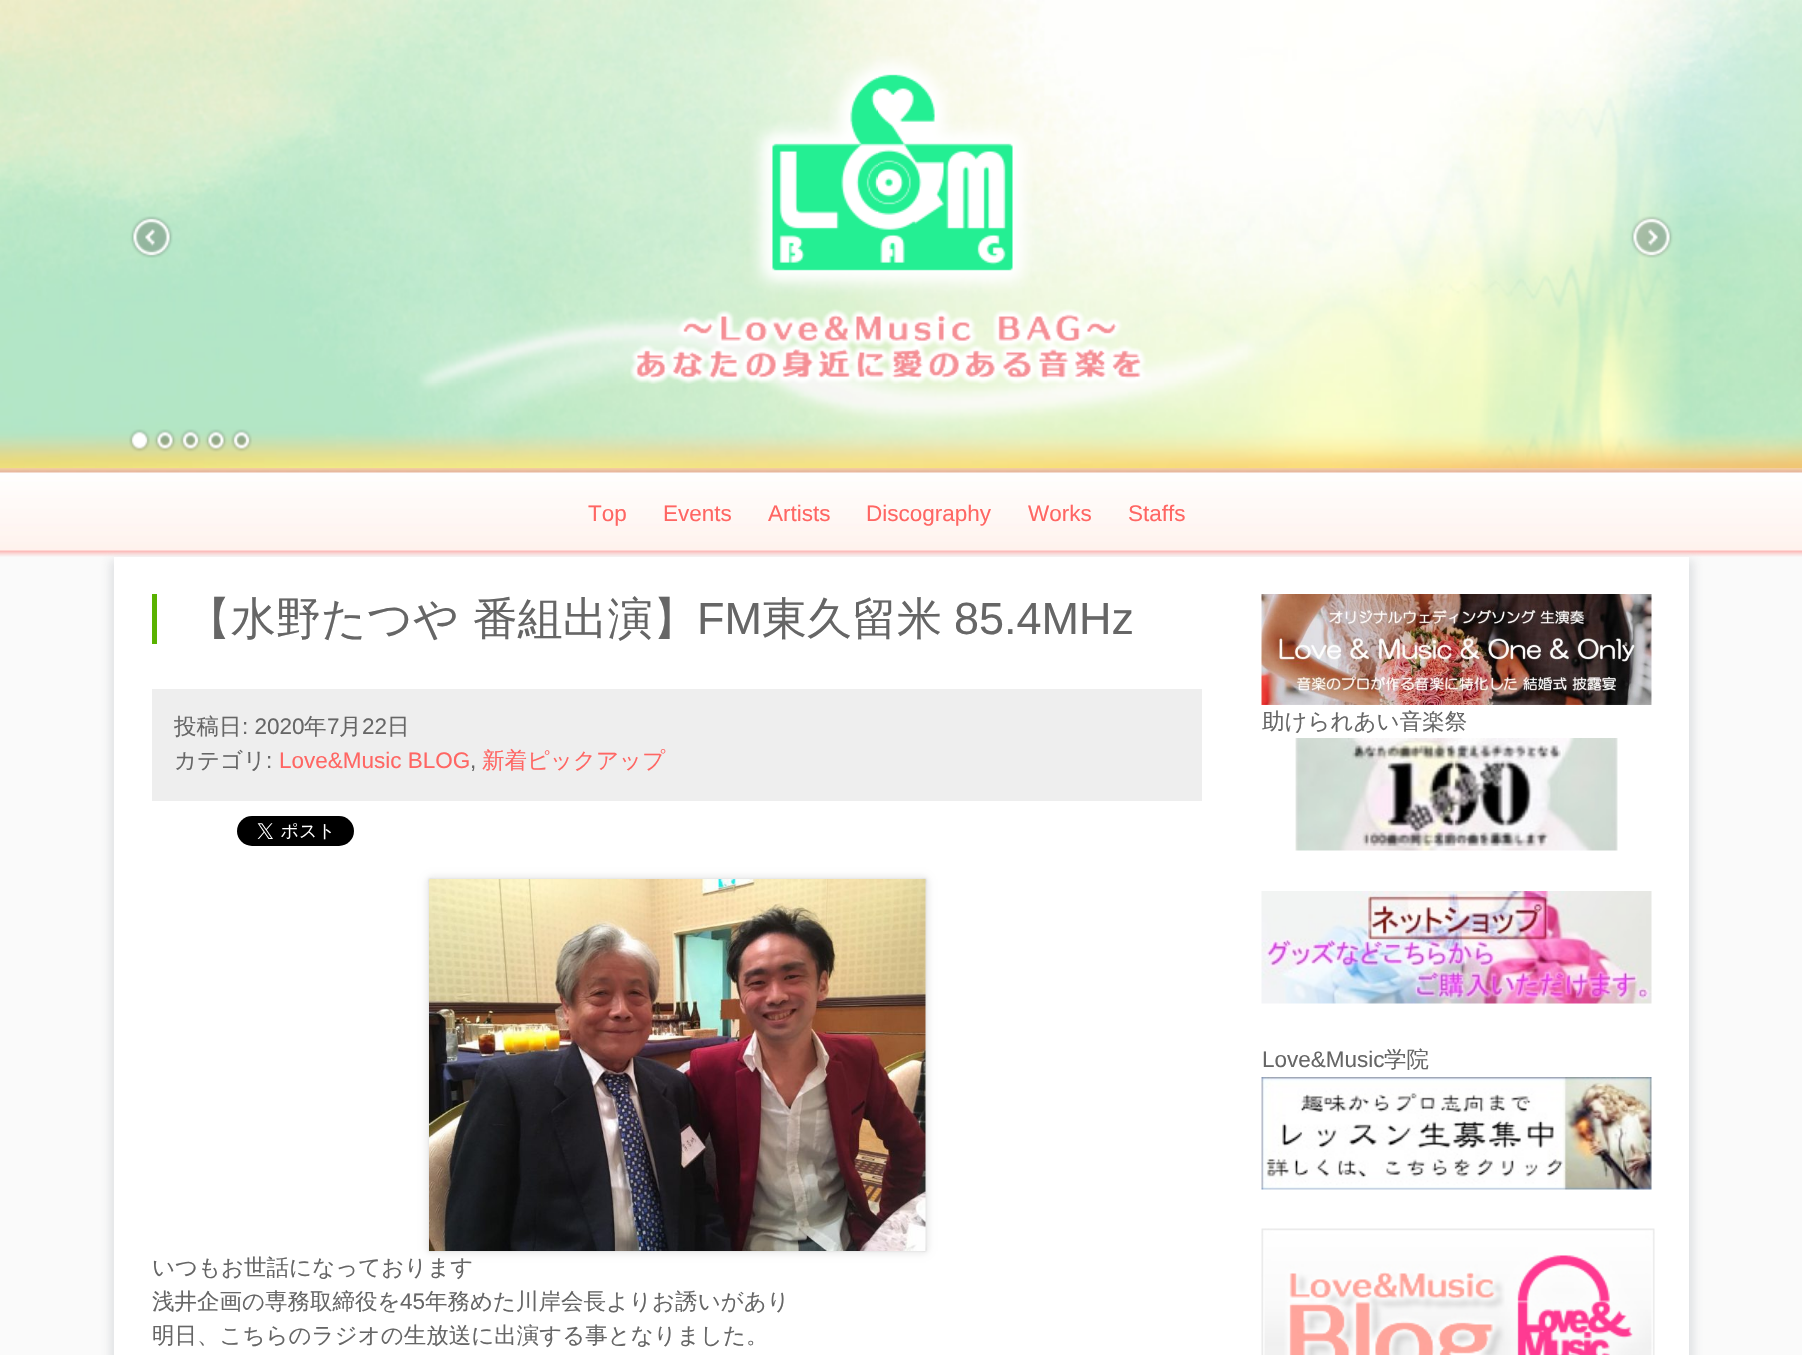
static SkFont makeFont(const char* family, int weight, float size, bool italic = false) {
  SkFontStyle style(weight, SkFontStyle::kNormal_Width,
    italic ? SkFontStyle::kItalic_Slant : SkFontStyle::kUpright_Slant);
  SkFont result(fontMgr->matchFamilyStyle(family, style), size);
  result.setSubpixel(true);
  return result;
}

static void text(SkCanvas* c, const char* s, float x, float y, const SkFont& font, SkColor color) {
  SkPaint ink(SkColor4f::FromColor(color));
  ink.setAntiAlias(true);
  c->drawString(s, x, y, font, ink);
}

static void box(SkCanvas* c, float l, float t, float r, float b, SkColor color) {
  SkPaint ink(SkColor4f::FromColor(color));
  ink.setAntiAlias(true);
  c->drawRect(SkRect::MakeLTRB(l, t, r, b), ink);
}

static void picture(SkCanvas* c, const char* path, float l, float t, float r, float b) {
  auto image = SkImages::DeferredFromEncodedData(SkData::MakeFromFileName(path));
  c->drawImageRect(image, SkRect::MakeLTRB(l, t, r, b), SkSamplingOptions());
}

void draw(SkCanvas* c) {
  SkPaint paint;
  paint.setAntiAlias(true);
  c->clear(0xfffafafa);
  picture(c, "img_01.png", 0, 0, 1802, 468);
  picture(c, "img_02.png", 630, 56, 1146, 384);
  picture(c, "img_03.png", 130, 216, 173, 258);
  picture(c, "img_04.png", 1630, 216, 1673, 258);
  picture(c, "img_05.png", 129, 429, 150, 452);
  picture(c, "img_06.png", 154, 429, 176, 452);
  picture(c, "img_07.png", 180, 429, 201, 452);
  picture(c, "img_08.png", 205, 429, 227, 452);
  picture(c, "img_09.png", 231, 429, 252, 452);
  picture(c, "img_10.png", 0, 468, 1802, 557);
  SkFont face1 = makeFont("Liberation Sans", 400, 22.5f);
  text(c, "Top", 588, 521, face1, 0xffff6663);
  text(c, "Events", 663, 521, face1, 0xffff6663);
  text(c, "Artists", 768, 521, face1, 0xffff6663);
  text(c, "Discography", 866, 521, face1, 0xffff6663);
  text(c, "Works", 1028, 521, face1, 0xffff6663);
  text(c, "Staffs", 1128, 521, face1, 0xffff6663);
  paint.setColor(0xa6d2d5d9);
  paint.setMaskFilter(SkMaskFilter::MakeBlur(kNormal_SkBlurStyle, 4.5f));
  c->drawRect(SkRect::MakeLTRB(110, 560, 1694, 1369), paint);
  paint.setMaskFilter(nullptr);
  box(c, 114, 557, 1689, 1355, 0xffffffff);
  box(c, 152, 594, 157, 644, 0xff59b200);
  SkFont face2 = makeFont("WenQuanYi Zen Hei", 500, 45);
  text(c, "【水野たつや 番組出演】", 186, 634, face2, 0xff666666);
  SkFont face3 = makeFont("Liberation Sans", 400, 45);
  text(c, "FM", 697, 634, face3, 0xff666666);
  text(c, "東久留米", 762, 634, face2, 0xff666666);
  text(c, "85.4MHz", 954, 634, face3, 0xff666666);
  box(c, 152, 689, 1202, 801, 0xffeeeeee);
  SkFont face4 = makeFont("WenQuanYi Zen Hei", 500, 22.5f);
  text(c, "投稿日", 174, 734, face4, 0xff666666);
  text(c, ": 2020", 242, 734, face1, 0xff666666);
  text(c, "年", 304, 734, face4, 0xff666666);
  text(c, "7", 327, 734, face1, 0xff666666);
  text(c, "月", 339, 734, face4, 0xff666666);
  text(c, "22", 362, 734, face1, 0xff666666);
  text(c, "日", 387, 734, face4, 0xff666666);
  text(c, "カテゴリ", 174, 768, face4, 0xff666666);
  text(c, ":", 266, 768, face1, 0xff666666);
  text(c, "Love&Music BLOG", 279, 768, face1, 0xffff6663);
  text(c, ",", 470, 768, face1, 0xff666666);
  text(c, "新着ピックアップ", 482, 768, face4, 0xffff6663);
  picture(c, "img_11.png", 237, 816, 354, 846);
  paint.setColor(0xffaaaaaa);
  paint.setMaskFilter(SkMaskFilter::MakeBlur(kNormal_SkBlurStyle, 1));
  c->drawRect(SkRect::MakeLTRB(429, 879, 926, 1251), paint);
  paint.setMaskFilter(nullptr);
  paint.setColor(0xffcccccc);
  paint.setMaskFilter(SkMaskFilter::MakeBlur(kNormal_SkBlurStyle, 4));
  c->drawRect(SkRect::MakeLTRB(429, 879, 926, 1251), paint);
  paint.setMaskFilter(nullptr);
  paint.setColor(0xffffffff);
  paint.setMaskFilter(SkMaskFilter::MakeBlur(kNormal_SkBlurStyle, 4));
  c->drawRect(SkRect::MakeLTRB(429, 879, 926, 1251), paint);
  paint.setMaskFilter(nullptr);
  picture(c, "img_12.png", 429, 879, 926, 1251);
  text(c, "いつもお世話になっております", 152, 1275, face4, 0xff666666);
  text(c, "浅井企画の専務取締役を", 152, 1309, face4, 0xff666666);
  text(c, "45", 400, 1309, face1, 0xff666666);
  text(c, "年務めた川岸会長よりお誘いがあり", 425, 1309, face4, 0xff666666);
  text(c, "明日、こちらのラジオの生放送に出演する事となりました。", 152, 1343, face4, 0xff666666);
  picture(c, "img_13.png", 1261, 594, 1652, 705);
  text(c, "助けられあい音楽祭", 1262, 729, face4, 0xff666666);
  picture(c, "img_14.png", 1295, 738, 1618, 851);
  picture(c, "img_15.png", 1261, 891, 1652, 1004);
  text(c, "Love&Music", 1262, 1067, face1, 0xff666666);
  text(c, "学院", 1384, 1067, face4, 0xff666666);
  picture(c, "img_16.png", 1261, 1077, 1652, 1190);
  picture(c, "img_17.png", 1261, 1228, 1655, 1355);
}
